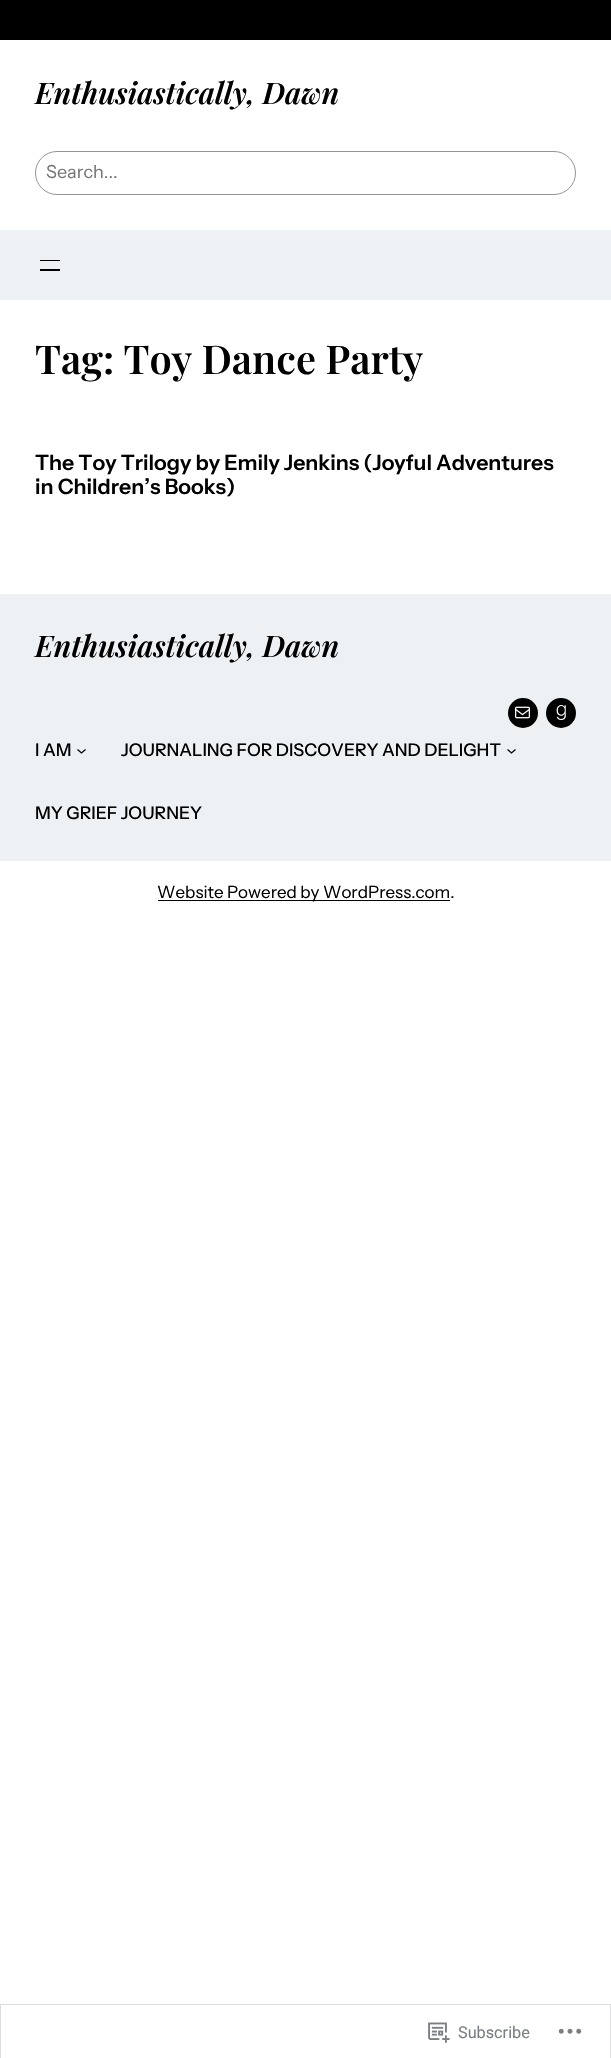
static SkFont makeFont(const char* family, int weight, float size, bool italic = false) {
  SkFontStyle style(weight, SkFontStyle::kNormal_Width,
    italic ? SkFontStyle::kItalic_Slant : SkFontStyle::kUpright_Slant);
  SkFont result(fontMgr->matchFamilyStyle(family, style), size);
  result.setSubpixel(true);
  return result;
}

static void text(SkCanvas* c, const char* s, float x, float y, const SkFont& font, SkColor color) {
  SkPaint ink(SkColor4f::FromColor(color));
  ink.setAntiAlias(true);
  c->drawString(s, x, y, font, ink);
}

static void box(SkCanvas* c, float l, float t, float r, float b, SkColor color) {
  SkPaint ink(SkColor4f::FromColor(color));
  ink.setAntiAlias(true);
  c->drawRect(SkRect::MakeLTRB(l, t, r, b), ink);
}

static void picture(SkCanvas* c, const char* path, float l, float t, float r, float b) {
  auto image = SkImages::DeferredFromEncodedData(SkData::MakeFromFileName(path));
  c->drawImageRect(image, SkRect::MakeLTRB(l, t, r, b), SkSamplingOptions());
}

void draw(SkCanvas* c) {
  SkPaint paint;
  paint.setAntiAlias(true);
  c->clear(0xffffffff);
  box(c, 0, 0, 611, 40, 0xff000000);
  SkFont face1 = makeFont("Playfair Display", 600, 29.75f, true);
  text(c, "Enthusiastically, Dawn", 35, 104, face1, 0xff000000);
  paint.setStyle(SkPaint::kStroke_Style);
  paint.setStrokeWidth(1);
  paint.setColor(0xff949494);
  c->drawRoundRect(SkRect::MakeLTRB(35.5f, 151.5f, 575.5f, 194.5f), 21.5f, 21.5f, paint);
  SkFont face2 = makeFont("Instrument Sans", 400, 18);
  text(c, "Search...", 46, 178, face2, 0xff757575);
  box(c, 0, 230, 611, 300, 0xffedf1f4);
  box(c, 40, 260, 60, 261, 0xff000000);
  box(c, 40, 269, 60, 271, 0xff000000);
  SkFont face3 = makeFont("Playfair Display", 600, 39.75f);
  text(c, "Tag: Toy Dance Party", 35, 374, face3, 0xff000000);
  SkFont face4 = makeFont("Instrument Sans", 600, 21.25f);
  text(c, "The Toy Trilogy by Emily Jenkins (Joyful Adventures", 35, 470, face4, 0xff000000);
  text(c, "in Children’s Books)", 35, 494, face4, 0xff000000);
  box(c, 0, 594, 611, 861, 0xffedf1f4);
  text(c, "Enthusiastically, Dawn", 35, 657, face1, 0xff000000);
  paint.setStyle(SkPaint::kFill_Style);
  paint.setColor(0xff000000);
  c->drawCircle(523, 713, 15, paint);
  picture(c, "img_01.png", 515, 706, 530, 719);
  c->drawCircle(561, 713, 15, paint);
  picture(c, "img_02.png", 556, 705, 566, 720);
  SkFont face5 = makeFont("Instrument Sans", 500, 17.5f);
  text(c, "I AM", 35, 756, face5, 0xff000000);
  paint.setStyle(SkPaint::kStroke_Style);
  paint.setStrokeWidth(1.3f);
  c->drawPath(SkPathBuilder().moveTo(77.5f, 749.5f).lineTo(81.5f, 753).lineTo(85.5f, 749.5f).detach(), paint);
  text(c, "JOURNALING FOR DISCOVERY AND DELIGHT", 121, 756, face5, 0xff000000);
  c->drawPath(SkPathBuilder().moveTo(507.5f, 749.5f).lineTo(511.5f, 753).lineTo(515.5f, 749.5f).detach(), paint);
  text(c, "MY GRIEF JOURNEY", 35, 819, face5, 0xff000000);
  box(c, 158, 900, 450, 901, 0xff000000);
  SkFont face6 = makeFont("Instrument Sans", 400, 17);
  text(c, "Website Powered by WordPress.com.", 157, 898, face6, 0xff000000);
  paint.setStrokeWidth(1);
  paint.setColor(0xffdddddf);
  c->drawRect(SkRect::MakeLTRB(0.5f, 2004.5f, 610.5f, 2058.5f), paint);
  picture(c, "img_03.png", 428, 2022, 450, 2043);
  SkFont face7 = makeFont("Roboto", 400, 16.25f);
  text(c, "Subscribe", 458, 2038, face7, 0xff7b7f85);
  picture(c, "img_04.png", 558, 2028, 582, 2034);
}
